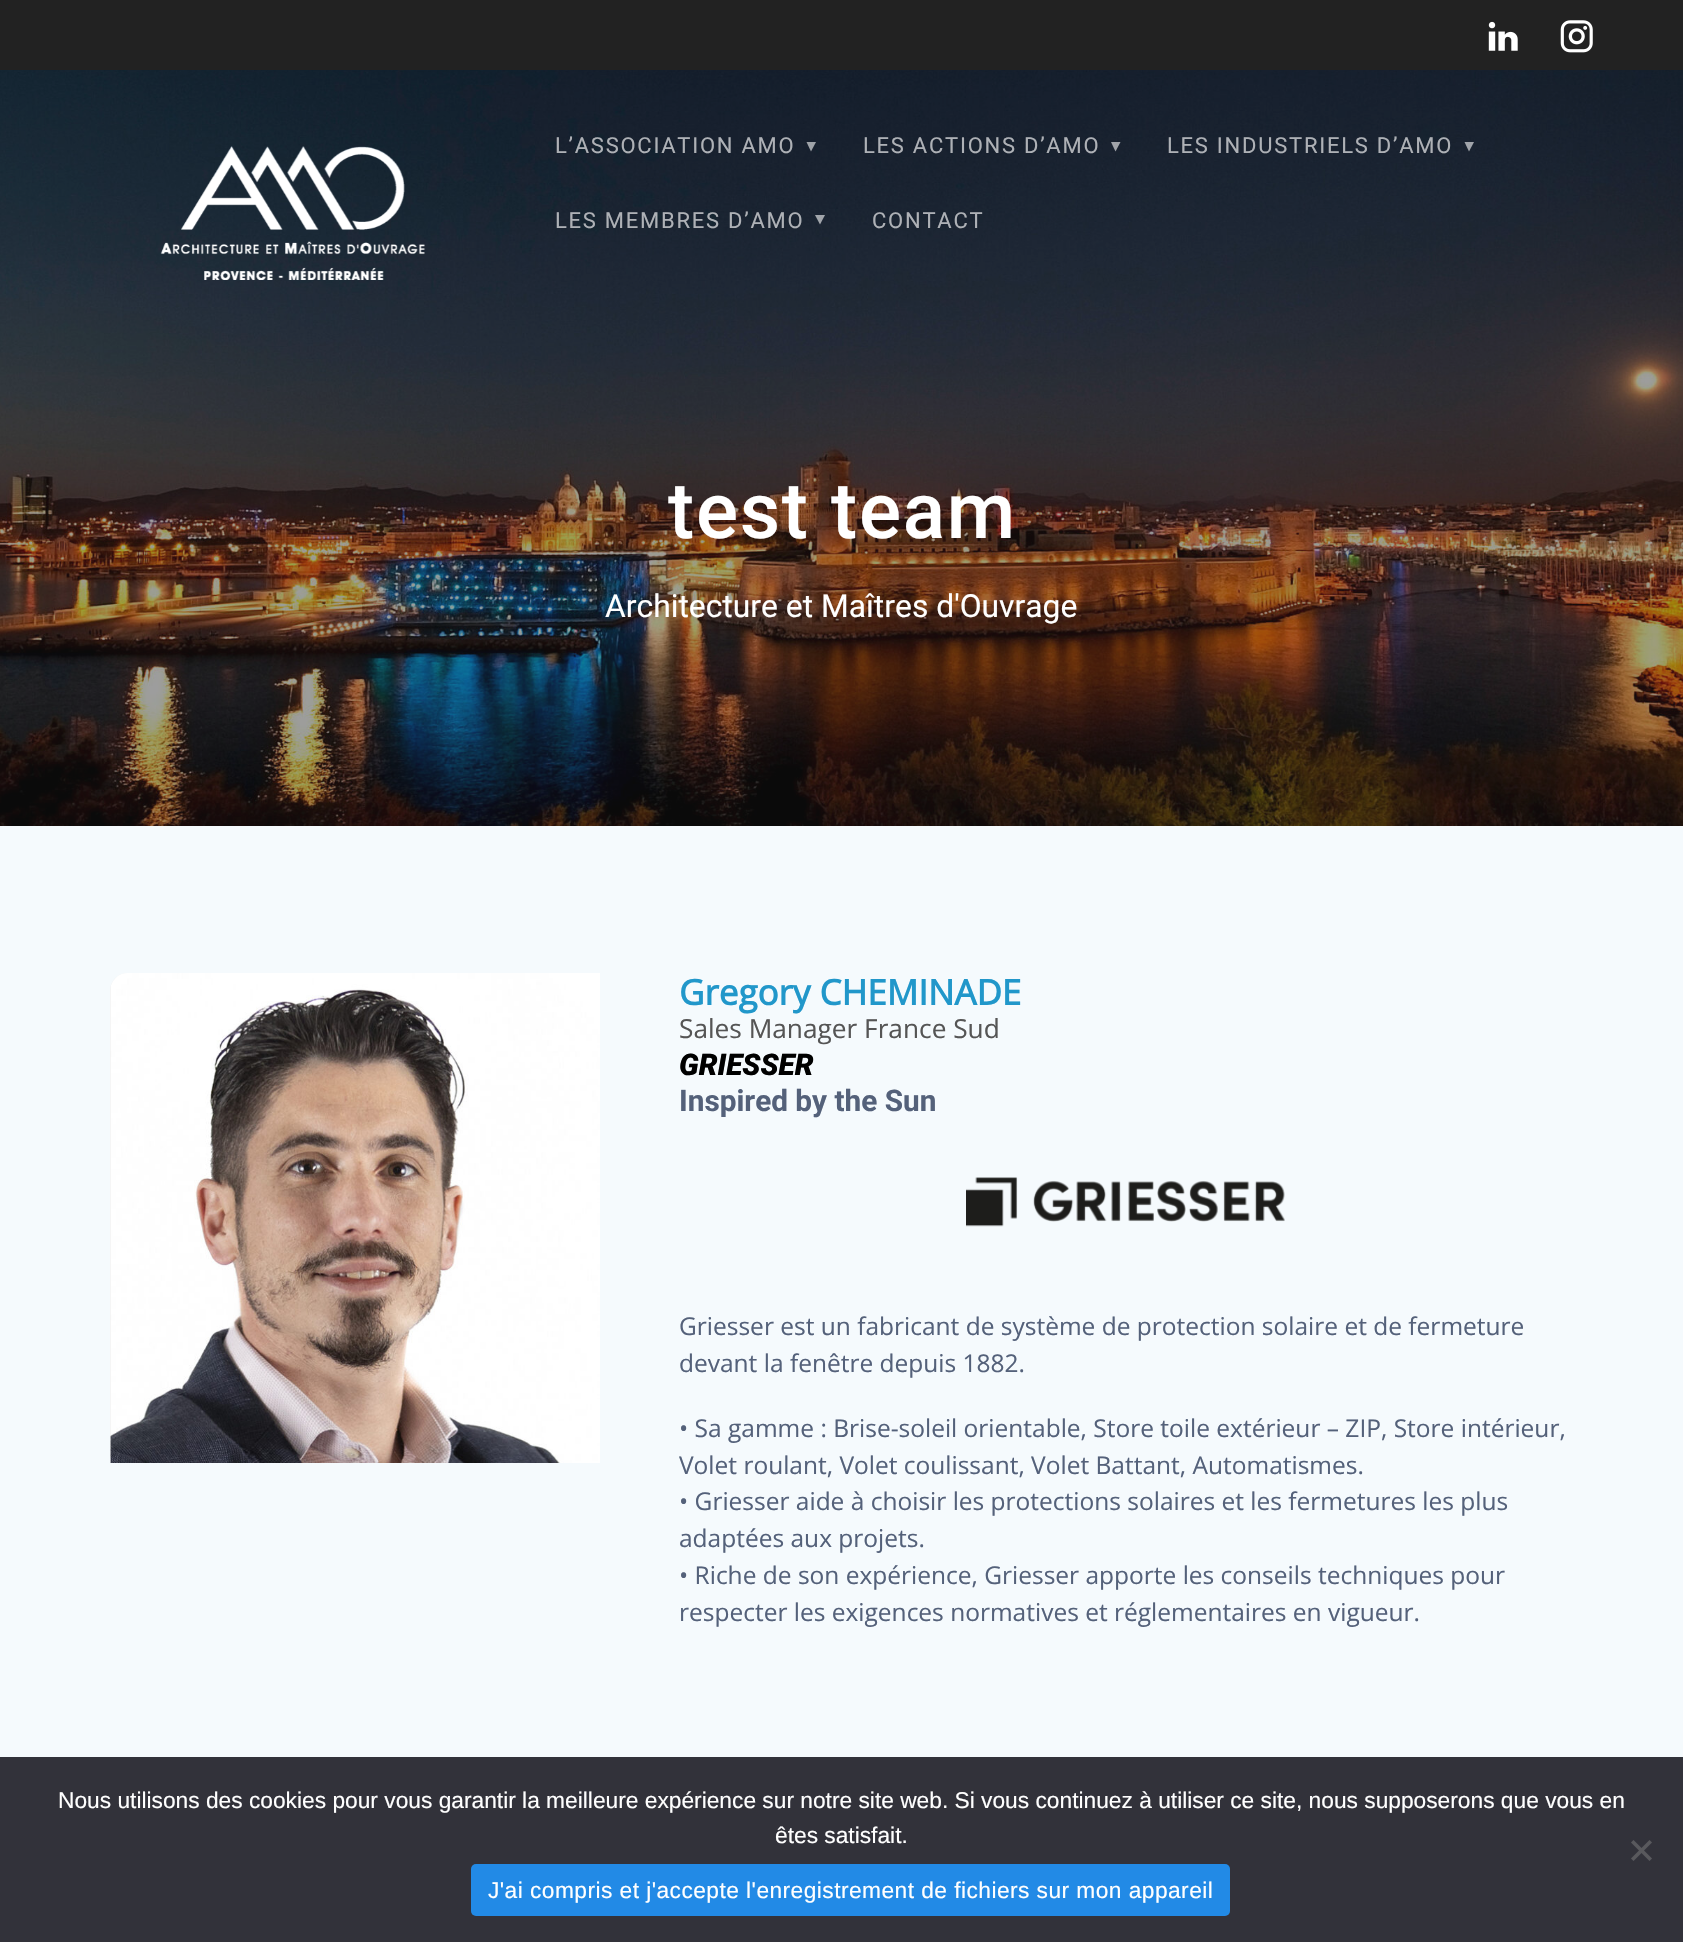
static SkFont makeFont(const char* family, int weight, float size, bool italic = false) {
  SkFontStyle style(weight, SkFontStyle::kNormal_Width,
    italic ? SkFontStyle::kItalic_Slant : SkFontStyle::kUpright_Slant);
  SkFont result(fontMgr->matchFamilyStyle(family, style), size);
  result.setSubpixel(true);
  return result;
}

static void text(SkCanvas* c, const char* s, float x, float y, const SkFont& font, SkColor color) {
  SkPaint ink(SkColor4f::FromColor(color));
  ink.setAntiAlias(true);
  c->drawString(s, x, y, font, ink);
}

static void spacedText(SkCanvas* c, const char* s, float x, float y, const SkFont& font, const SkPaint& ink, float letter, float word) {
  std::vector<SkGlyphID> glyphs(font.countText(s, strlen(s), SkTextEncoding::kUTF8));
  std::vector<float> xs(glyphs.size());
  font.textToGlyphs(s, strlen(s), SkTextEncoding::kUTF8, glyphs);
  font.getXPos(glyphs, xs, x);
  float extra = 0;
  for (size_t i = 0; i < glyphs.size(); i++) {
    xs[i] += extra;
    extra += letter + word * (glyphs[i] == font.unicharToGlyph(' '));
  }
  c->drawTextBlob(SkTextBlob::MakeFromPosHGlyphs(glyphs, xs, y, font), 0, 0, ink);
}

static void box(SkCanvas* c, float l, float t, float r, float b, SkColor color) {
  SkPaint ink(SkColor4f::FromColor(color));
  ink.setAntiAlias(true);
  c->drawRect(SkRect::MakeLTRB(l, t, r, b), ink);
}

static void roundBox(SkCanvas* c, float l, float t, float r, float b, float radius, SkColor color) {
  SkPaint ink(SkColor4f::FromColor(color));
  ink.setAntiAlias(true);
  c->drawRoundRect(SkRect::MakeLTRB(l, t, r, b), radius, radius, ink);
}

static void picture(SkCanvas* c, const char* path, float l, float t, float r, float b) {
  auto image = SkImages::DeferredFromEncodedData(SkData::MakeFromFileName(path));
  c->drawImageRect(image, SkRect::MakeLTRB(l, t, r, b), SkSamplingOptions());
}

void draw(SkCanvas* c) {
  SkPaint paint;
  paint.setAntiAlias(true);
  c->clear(0xffffffff);
  box(c, 0, 0, 1683, 70, 0xff222222);
  picture(c, "img_01.png", 1488, 21, 1518, 51);
  picture(c, "img_02.png", 1560, 20, 1593, 53);
  picture(c, "img_04.png", 0, 70, 1683, 826);
  picture(c, "img_03.png", 160, 146, 425, 280);
  SkFont face1 = makeFont("Roboto", 400, 22);
  paint.setColor(0xffaeb1b6);
  spacedText(c, "L’ASSOCIATION AMO", 555, 153, face1, paint, 1.75f, 0);
  paint.setColor(0xff9fa3a8);
  c->drawPath(SkPathBuilder().moveTo(806.5f, 142).lineTo(811, 151.5f).lineTo(816, 142).close().detach(), paint);
  paint.setColor(0xffaeb1b6);
  spacedText(c, "LES ACTIONS D’AMO", 863, 153, face1, paint, 1.75f, 0);
  paint.setColor(0x96ffffff);
  c->drawPath(SkPathBuilder().moveTo(1111, 142).lineTo(1115.5f, 151.5f).lineTo(1120.5f, 142).close().detach(), paint);
  paint.setColor(0xffaeb1b6);
  spacedText(c, "LES INDUSTRIELS D’AMO", 1167, 153, face1, paint, 1.75f, 0);
  paint.setColor(0x96ffffff);
  c->drawPath(SkPathBuilder().moveTo(1464.5f, 142).lineTo(1469, 151.5f).lineTo(1474, 142).close().detach(), paint);
  paint.setColor(0xffaeb1b6);
  spacedText(c, "LES MEMBRES D’AMO", 555, 228, face1, paint, 1.75f, 0);
  paint.setColor(0x96ffffff);
  c->drawPath(SkPathBuilder().moveTo(815, 215).lineTo(820, 224.5f).lineTo(825, 215).close().detach(), paint);
  paint.setColor(0xffaeb1b6);
  spacedText(c, "CONTACT", 872, 228, face1, paint, 1.75f, 0);
  SkFont face2 = makeFont("Roboto", 500, 78.5f);
  paint.setColor(0xffffffff);
  spacedText(c, "test team", 668, 538, face2, paint, 1.75f, 0);
  SkFont face3 = makeFont("Roboto", 400, 31.8f);
  text(c, "Architecture et Maîtres d'Ouvrage", 605, 617, face3, 0xffffffff);
  box(c, 0, 826, 1683, 1757, 0xfff5fafd);
  paint.setColor(0xffeeeeee);
  c->drawPath(SkPathBuilder().moveTo(128, 973).lineTo(600, 973).lineTo(600, 1463).lineTo(110, 1463).lineTo(110, 991).cubicTo(110, 981, 118, 973, 128, 973).close().detach(), paint);
  picture(c, "img_05.png", 110, 973, 600, 1463);
  SkFont face4 = makeFont("Open Sans", 700, 35);
  text(c, "Gregory CHEMINADE", 679, 1005, face4, 0xff2197ca);
  SkFont face5 = makeFont("Open Sans", 400, 26.25f);
  text(c, "Sales Manager France Sud", 679, 1038, face5, 0xff555555);
  SkFont face6 = makeFont("Roboto", 900, 29.75f, true);
  text(c, "GRIESSER", 679, 1075, face6, 0xff000000);
  SkFont face7 = makeFont("Roboto", 700, 29.75f);
  text(c, "Inspired by the Sun", 679, 1111, face7, 0xff54617a);
  picture(c, "img_06.png", 966, 1177, 1285, 1227);
  SkFont face8 = makeFont("Open Sans", 400, 24.5f);
  text(c, "Griesser est un fabricant de système de protection solaire et de fermeture", 679, 1335, face8, 0xff54617a);
  text(c, "devant la fenêtre depuis 1882.", 679, 1372, face8, 0xff54617a);
  text(c, "• Sa gamme : Brise-soleil orientable, Store toile extérieur – ZIP, Store intérieur,", 679, 1437, face8, 0xff54617a);
  text(c, "Volet roulant, Volet coulissant, Volet Battant, Automatismes.", 679, 1474, face8, 0xff54617a);
  text(c, "• Griesser aide à choisir les protections solaires et les fermetures les plus", 679, 1510, face8, 0xff54617a);
  text(c, "adaptées aux projets.", 679, 1547, face8, 0xff54617a);
  text(c, "• Riche de son expérience, Griesser apporte les conseils techniques pour", 679, 1584, face8, 0xff54617a);
  text(c, "respecter les exigences normatives et réglementaires en vigueur.", 679, 1621, face8, 0xff54617a);
  box(c, 0, 1757, 1683, 1942, 0xff32323a);
  SkFont face9 = makeFont("Liberation Sans", 400, 22.75f);
  text(c, "Nous utilisons des cookies pour vous garantir la meilleure expérience sur notre site web. Si vous continuez à utiliser ce site, nous supposerons que vous en", 58, 1808, face9, 0xffffffff);
  text(c, "êtes satisfait.", 775, 1843, face9, 0xffffffff);
  paint.setColor(0xff59595d);
  c->drawPath(SkPathBuilder().moveTo(1649.5f, 1840).lineTo(1652, 1842.5f).lineTo(1633.5f, 1861).lineTo(1631, 1858.5f).close().detach(), paint);
  c->drawPath(SkPathBuilder().moveTo(1631, 1842.5f).lineTo(1633.5f, 1840).lineTo(1652, 1858.5f).lineTo(1649.5f, 1861).close().detach(), paint);
  roundBox(c, 471, 1864, 1230, 1916, 5, 0xff228ae6);
  paint.setColor(0xffffffff);
  spacedText(c, "J'ai compris et j'accepte l'enregistrement de fichiers sur mon appareil", 488, 1898, face9, paint, 0.45f, 0);
}
